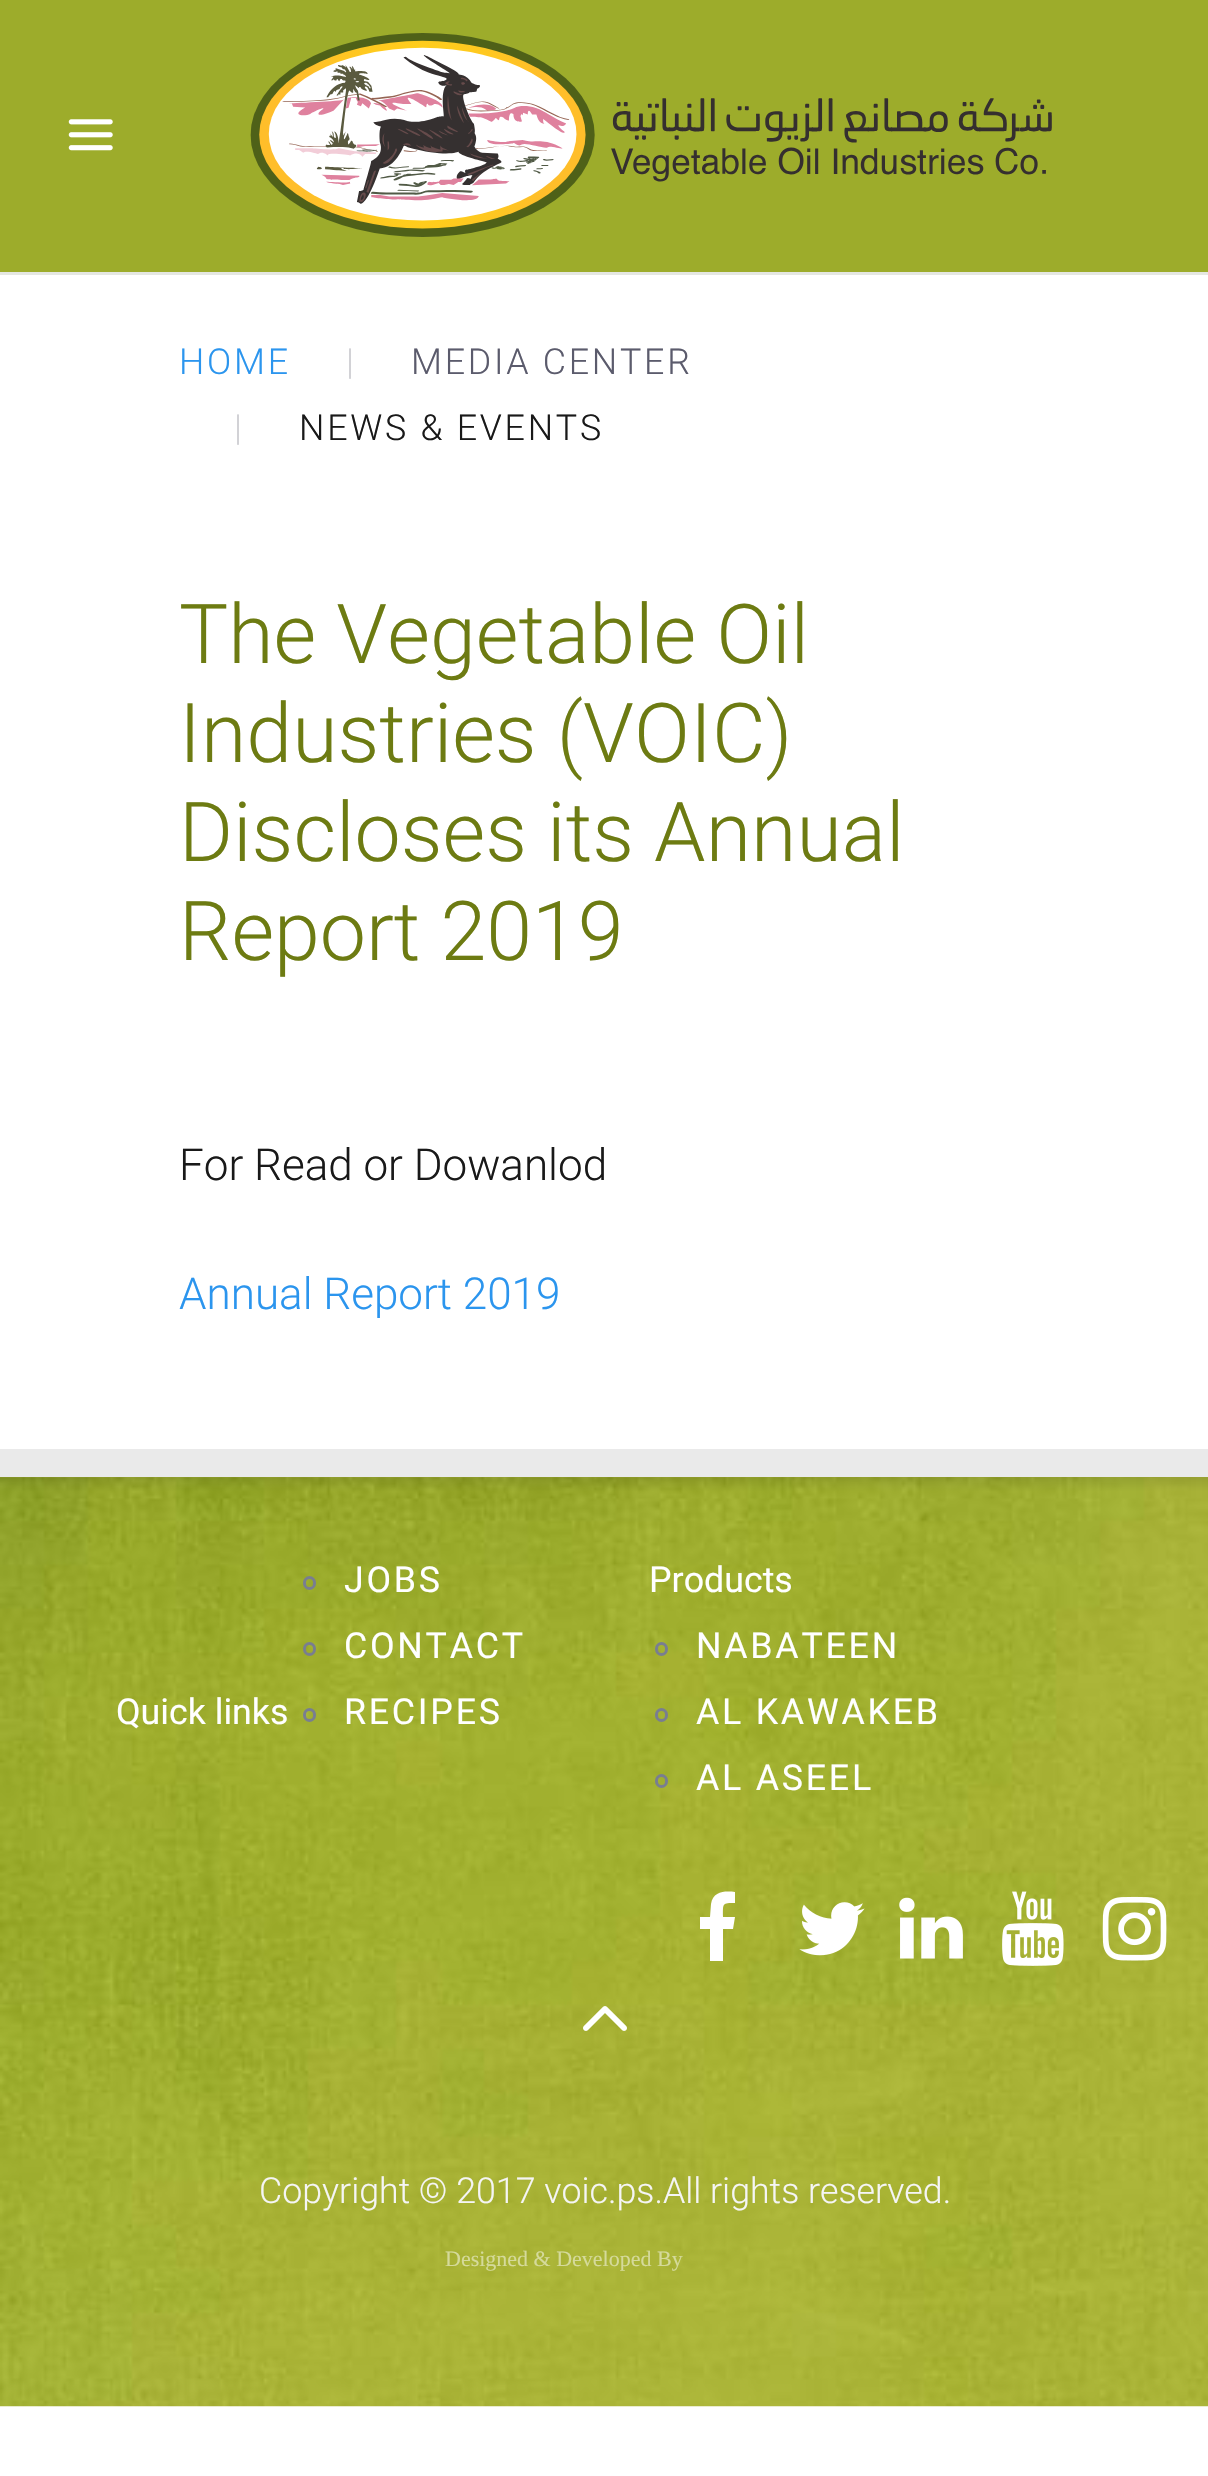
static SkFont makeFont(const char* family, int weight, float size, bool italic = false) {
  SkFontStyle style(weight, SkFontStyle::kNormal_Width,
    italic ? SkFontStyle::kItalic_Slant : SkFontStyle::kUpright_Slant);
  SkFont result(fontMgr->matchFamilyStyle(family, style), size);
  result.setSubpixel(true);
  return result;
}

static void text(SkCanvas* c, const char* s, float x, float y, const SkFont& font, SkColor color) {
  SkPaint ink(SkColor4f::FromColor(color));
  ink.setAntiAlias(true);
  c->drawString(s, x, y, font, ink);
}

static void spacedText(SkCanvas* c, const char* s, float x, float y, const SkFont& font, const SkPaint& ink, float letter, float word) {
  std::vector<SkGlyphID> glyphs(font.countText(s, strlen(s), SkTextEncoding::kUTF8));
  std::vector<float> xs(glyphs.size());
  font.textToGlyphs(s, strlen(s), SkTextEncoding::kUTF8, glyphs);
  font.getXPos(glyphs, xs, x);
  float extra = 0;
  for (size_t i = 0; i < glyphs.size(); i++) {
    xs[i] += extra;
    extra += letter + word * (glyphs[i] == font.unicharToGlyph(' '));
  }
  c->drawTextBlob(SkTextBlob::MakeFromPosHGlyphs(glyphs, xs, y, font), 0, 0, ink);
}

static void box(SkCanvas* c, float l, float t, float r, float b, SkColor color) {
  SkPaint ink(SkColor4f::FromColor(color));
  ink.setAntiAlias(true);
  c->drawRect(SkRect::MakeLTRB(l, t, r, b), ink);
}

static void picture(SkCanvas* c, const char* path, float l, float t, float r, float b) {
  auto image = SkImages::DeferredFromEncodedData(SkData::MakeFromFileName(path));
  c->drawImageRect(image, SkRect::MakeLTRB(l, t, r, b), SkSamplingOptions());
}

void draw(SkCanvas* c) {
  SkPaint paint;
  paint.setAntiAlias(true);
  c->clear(0xffffffff);
  box(c, 0, 0, 1208, 272, 0xff9dac2b);
  box(c, 0, 272, 1208, 275, 0xffe5e7e2);
  picture(c, "img_01.png", 68, 119, 113, 151);
  picture(c, "img_02.png", 250, 33, 1052, 237);
  SkFont face1 = makeFont("Roboto", 300, 35.75f);
  paint.setColor(0xff2b95ee);
  spacedText(c, "HOME", 179, 374, face1, paint, 2.75f, 0);
  paint.setColor(0xffceced3);
  spacedText(c, "|", 346, 374, face1, paint, 2.75f, 0);
  paint.setColor(0xff5b5b6c);
  spacedText(c, "MEDIA CENTER", 411, 374, face1, paint, 2.75f, 0);
  paint.setColor(0xffceced3);
  spacedText(c, "|", 234, 440, face1, paint, 2.75f, 0);
  paint.setColor(0xff191919);
  spacedText(c, "NEWS & EVENTS", 299, 440, face1, paint, 2.75f, 0);
  SkFont face2 = makeFont("Roboto", 300, 82.5f);
  text(c, "The Vegetable Oil", 179, 663, face2, 0xff6d7b12);
  text(c, "Industries (VOIC)", 179, 762, face2, 0xff6d7b12);
  text(c, "Discloses its Annual", 179, 861, face2, 0xff6d7b12);
  text(c, "Report 2019", 179, 960, face2, 0xff6d7b12);
  SkFont face3 = makeFont("Roboto", 300, 44);
  text(c, "For Read or Dowanlod", 179, 1180, face3, 0xff191919);
  text(c, "Annual Report 2019", 179, 1309, face3, 0xff2b95ee);
  picture(c, "img_03.png", 0, 1477, 1208, 2407);
  box(c, 0, 1449, 1208, 1477, 0xffeaeaea);
  SkFont face4 = makeFont("Roboto", 400, 35.75f);
  text(c, "Quick links", 116, 1724, face4, 0xffffffff);
  paint.setStyle(SkPaint::kStroke_Style);
  paint.setStrokeWidth(3);
  paint.setColor(0xff797e90);
  c->drawRoundRect(SkRect::MakeLTRB(304.5f, 1577.5f, 314.5f, 1588.5f), 5, 5, paint);
  paint.setStyle(SkPaint::kFill_Style);
  paint.setColor(0xffffffff);
  spacedText(c, "JOBS", 344, 1592, face4, paint, 2.75f, 0);
  paint.setStyle(SkPaint::kStroke_Style);
  paint.setColor(0xff797e90);
  c->drawRoundRect(SkRect::MakeLTRB(304.5f, 1643.5f, 314.5f, 1654.5f), 5, 5, paint);
  paint.setStyle(SkPaint::kFill_Style);
  paint.setColor(0xffffffff);
  spacedText(c, "CONTACT", 344, 1658, face4, paint, 2.75f, 0);
  paint.setStyle(SkPaint::kStroke_Style);
  paint.setColor(0xff797e90);
  c->drawRoundRect(SkRect::MakeLTRB(304.5f, 1709.5f, 314.5f, 1720.5f), 5, 5, paint);
  paint.setStyle(SkPaint::kFill_Style);
  paint.setColor(0xffffffff);
  spacedText(c, "RECIPES", 344, 1724, face4, paint, 2.75f, 0);
  text(c, "Products", 649, 1592, face4, 0xffffffff);
  paint.setStyle(SkPaint::kStroke_Style);
  paint.setColor(0xff797e90);
  c->drawRoundRect(SkRect::MakeLTRB(656.5f, 1643.5f, 666.5f, 1654.5f), 5, 5, paint);
  paint.setStyle(SkPaint::kFill_Style);
  paint.setColor(0xffffffff);
  spacedText(c, "NABATEEN", 696, 1658, face4, paint, 2.75f, 0);
  paint.setStyle(SkPaint::kStroke_Style);
  paint.setColor(0xff797e90);
  c->drawRoundRect(SkRect::MakeLTRB(656.5f, 1709.5f, 666.5f, 1720.5f), 5, 5, paint);
  paint.setStyle(SkPaint::kFill_Style);
  paint.setColor(0xffffffff);
  spacedText(c, "AL KAWAKEB", 696, 1724, face4, paint, 2.75f, 0);
  paint.setStyle(SkPaint::kStroke_Style);
  paint.setColor(0xff797e90);
  c->drawRoundRect(SkRect::MakeLTRB(656.5f, 1775.5f, 666.5f, 1786.5f), 5, 5, paint);
  paint.setStyle(SkPaint::kFill_Style);
  paint.setColor(0xffffffff);
  spacedText(c, "AL ASEEL", 696, 1790, face4, paint, 2.75f, 0);
  c->drawPath(SkPathBuilder().moveTo(735, 1892).lineTo(735, 1903).cubicTo(722, 1903, 723, 1903, 723, 1917).lineTo(735, 1917).lineTo(733, 1929).lineTo(723, 1929).lineTo(723, 1961).lineTo(710, 1961).lineTo(710, 1929).lineTo(700, 1929).lineTo(700, 1917).lineTo(710, 1917).lineTo(711, 1904).cubicTo(713, 1891, 725, 1891, 735, 1892).close().detach(), paint);
  picture(c, "img_04.png", 799, 1902, 865, 1956);
  picture(c, "img_05.png", 899, 1897, 963, 1959);
  picture(c, "img_06.png", 1002, 1891, 1064, 1966);
  picture(c, "img_07.png", 1102, 1896, 1167, 1961);
  picture(c, "img_08.png", 583, 2006, 627, 2031);
  text(c, "Copyright © 2017 voic.ps.All rights reserved.", 259, 2203, face1, 0xfff5f5f5);
  SkFont face5 = makeFont("Liberation Serif", 400, 22);
  text(c, "Designed & Developed By", 445, 2266, face5, 0xffd5da9b);
}
